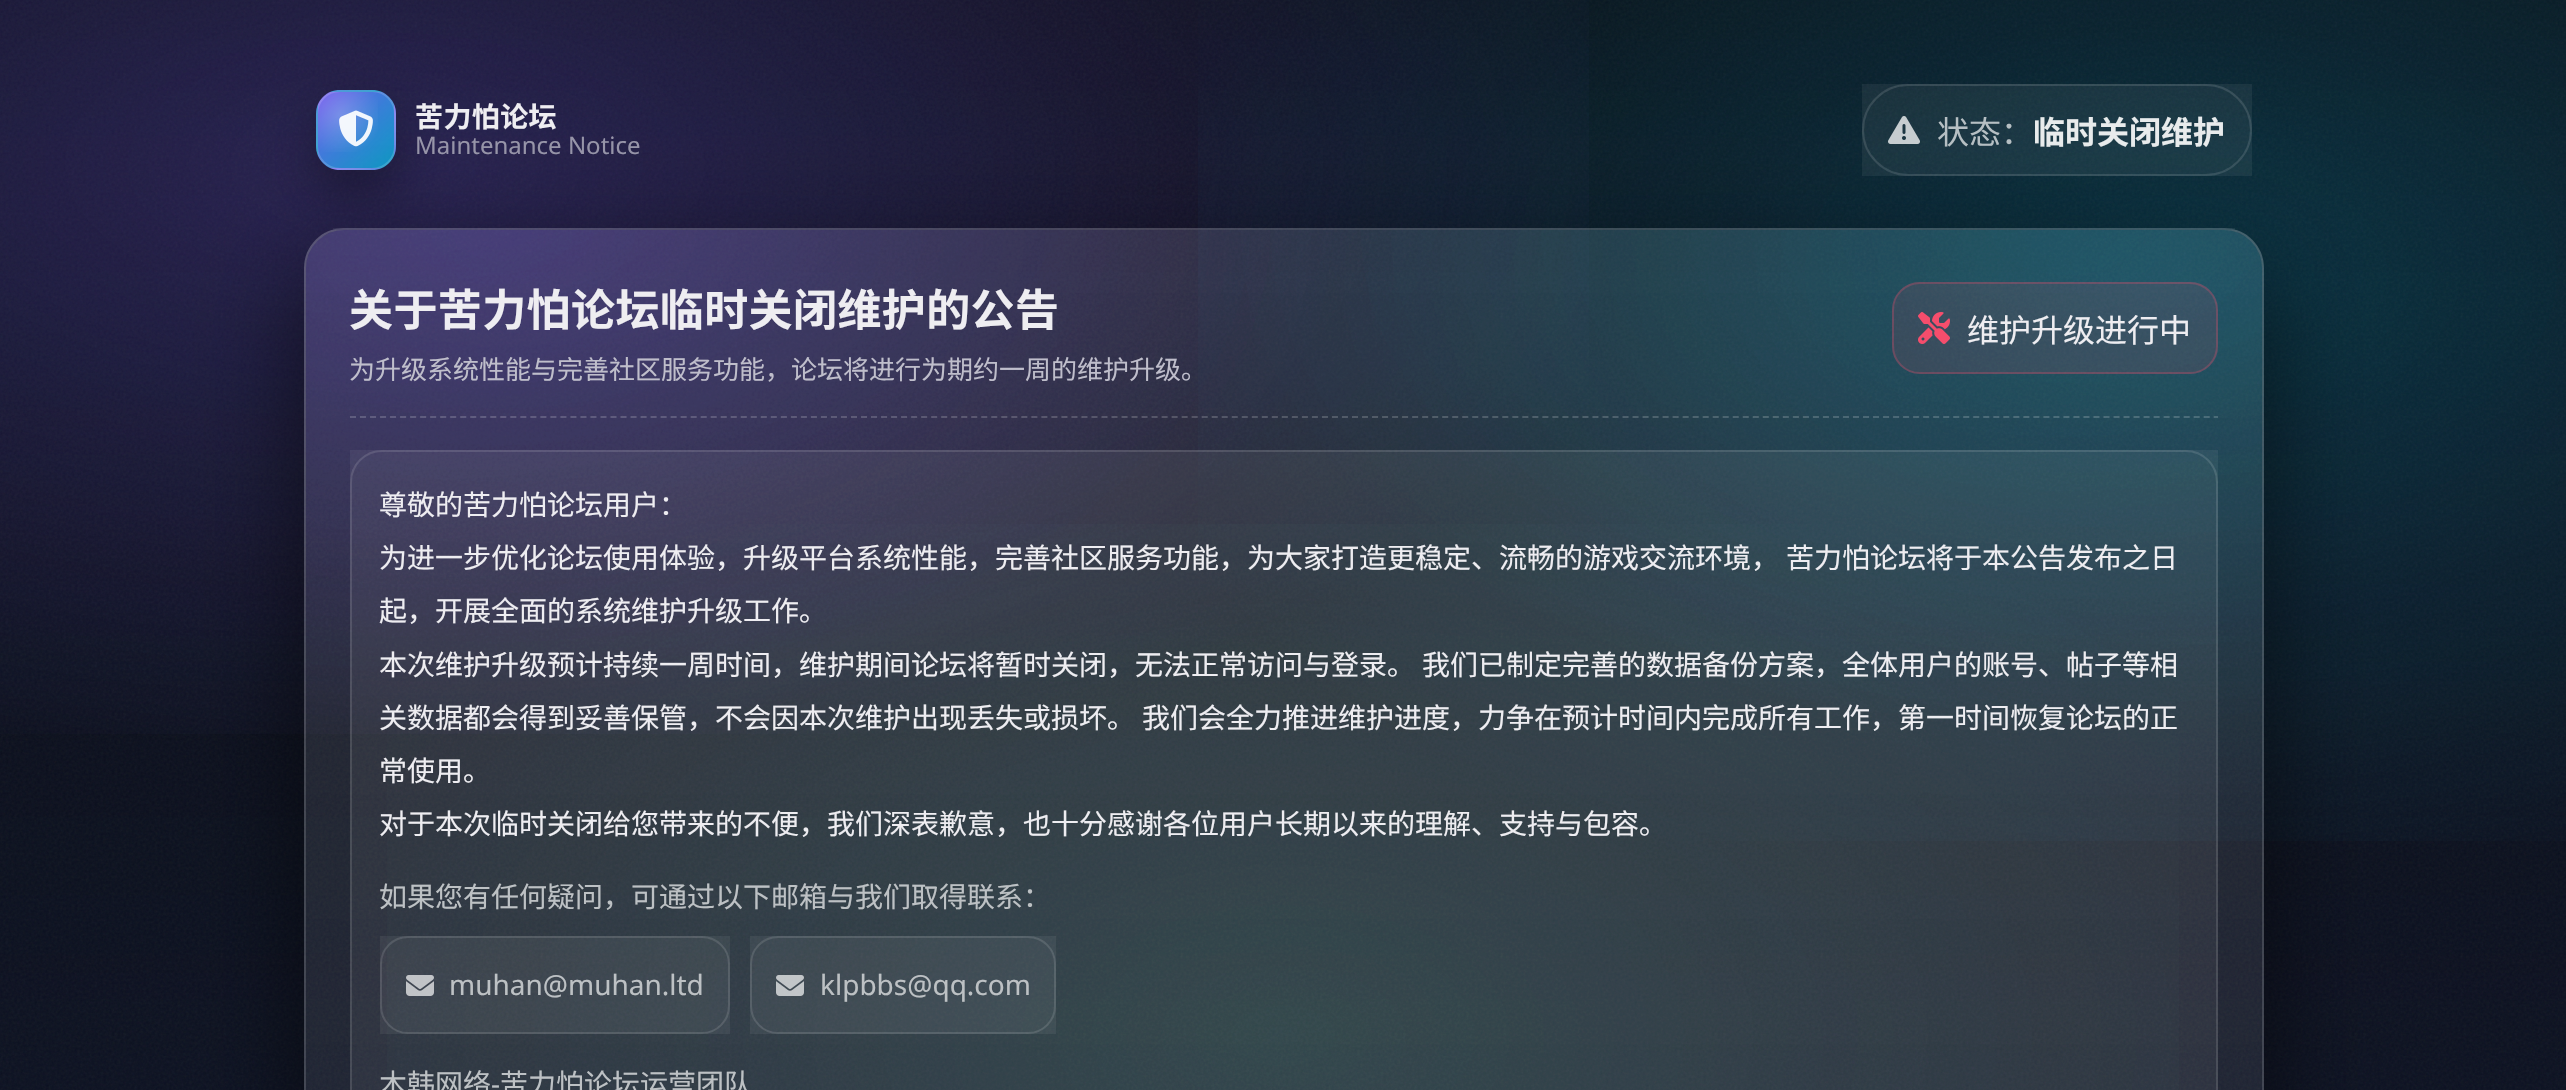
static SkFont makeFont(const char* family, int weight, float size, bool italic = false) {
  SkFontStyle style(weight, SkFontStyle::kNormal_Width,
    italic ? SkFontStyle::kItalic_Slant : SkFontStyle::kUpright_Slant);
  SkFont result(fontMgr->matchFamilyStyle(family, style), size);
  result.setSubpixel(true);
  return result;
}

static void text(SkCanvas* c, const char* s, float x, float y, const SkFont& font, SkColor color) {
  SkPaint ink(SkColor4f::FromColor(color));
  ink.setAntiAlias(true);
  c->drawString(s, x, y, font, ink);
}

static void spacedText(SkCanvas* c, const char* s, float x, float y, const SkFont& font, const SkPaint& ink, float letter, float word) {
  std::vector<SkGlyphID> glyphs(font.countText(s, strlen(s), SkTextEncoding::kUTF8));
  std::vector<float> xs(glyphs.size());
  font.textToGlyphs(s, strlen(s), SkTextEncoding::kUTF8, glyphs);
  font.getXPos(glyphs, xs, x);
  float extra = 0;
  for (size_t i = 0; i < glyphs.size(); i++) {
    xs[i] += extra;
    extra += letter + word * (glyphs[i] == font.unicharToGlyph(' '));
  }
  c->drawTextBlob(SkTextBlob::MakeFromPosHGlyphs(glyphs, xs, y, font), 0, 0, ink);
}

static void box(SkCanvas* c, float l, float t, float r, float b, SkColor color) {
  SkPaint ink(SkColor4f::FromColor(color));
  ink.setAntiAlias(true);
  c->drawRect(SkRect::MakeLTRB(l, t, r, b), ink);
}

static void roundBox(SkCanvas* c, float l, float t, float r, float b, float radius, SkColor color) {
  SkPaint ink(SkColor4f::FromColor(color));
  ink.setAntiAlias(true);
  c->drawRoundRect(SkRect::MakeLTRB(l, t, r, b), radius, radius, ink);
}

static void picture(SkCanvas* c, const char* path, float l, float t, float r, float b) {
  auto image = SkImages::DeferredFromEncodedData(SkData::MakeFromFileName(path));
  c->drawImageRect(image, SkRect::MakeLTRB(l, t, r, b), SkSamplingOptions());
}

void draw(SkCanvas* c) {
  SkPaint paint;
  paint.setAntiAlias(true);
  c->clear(0xffffffff);
  {
    const SkColor colors[] = {0xff070a12, 0xff0b1020};
    const float stops[] = {0, 1};
    const SkPoint ends[] = {{1283, 0}, {1283, 1090}};
    paint.setShader(SkGradientShader::MakeLinear(ends, colors, stops, 2, SkTileMode::kClamp));
    paint.setAlpha(255);
  }
  c->drawRect(SkRect::MakeLTRB(0, 0, 2566, 1090), paint);
  {
    const SkColor colors[] = {0x1f34d399, 0x0034d399};
    const float stops[] = {0, 0.6f};
    SkMatrix m = SkMatrix::Translate(1283, 1036).preScale(1800, 1040);
    paint.setShader(SkGradientShader::MakeRadial({0, 0}, 1, colors, stops, 2, SkTileMode::kClamp, 0, &m));
    paint.setAlpha(255);
  }
  c->drawRect(SkRect::MakeLTRB(387, 524, 2179, 1090), paint);
  {
    const SkColor colors[] = {0x2e00d4ff, 0x0000d4ff};
    const float stops[] = {0, 0.62f};
    SkMatrix m = SkMatrix::Translate(2181, 273).preScale(1800, 1040);
    paint.setShader(SkGradientShader::MakeRadial({0, 0}, 1, colors, stops, 2, SkTileMode::kClamp, 0, &m));
    paint.setAlpha(255);
  }
  c->drawRect(SkRect::MakeLTRB(1198, 0, 2566, 841), paint);
  {
    const SkColor colors[] = {0x407c5cff, 0x007c5cff};
    const float stops[] = {0, 0.6f};
    SkMatrix m = SkMatrix::Translate(385, 164).preScale(2200, 1040);
    paint.setShader(SkGradientShader::MakeRadial({0, 0}, 1, colors, stops, 2, SkTileMode::kClamp, 0, &m));
    paint.setAlpha(255);
  }
  c->drawRect(SkRect::MakeLTRB(0, 0, 1589, 734), paint);
  picture(c, "img_01.png", 0, 0, 2566, 1090);
  c->save();
  c->clipPath(SkPathBuilder(SkPathFillType::kEvenOdd).moveTo(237, 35).lineTo(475, 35).lineTo(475, 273).lineTo(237, 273).close().moveTo(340, 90).lineTo(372, 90).cubicTo(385.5f, 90, 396, 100.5f, 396, 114).lineTo(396, 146).cubicTo(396, 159.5f, 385.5f, 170, 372, 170).lineTo(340, 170).cubicTo(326.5f, 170, 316, 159.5f, 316, 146).lineTo(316, 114).cubicTo(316, 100.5f, 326.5f, 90, 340, 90).close().detach(), true);
  paint.setShader(nullptr);
  paint.setColor(0x59000000);
  paint.setMaskFilter(SkMaskFilter::MakeBlur(kNormal_SkBlurStyle, 26));
  c->drawRoundRect(SkRect::MakeLTRB(316, 114, 396, 194), 24, 24, paint);
  paint.setMaskFilter(nullptr);
  c->restore();
  c->save();
  c->clipPath(SkPathBuilder().moveTo(340, 90).lineTo(372, 90).cubicTo(385.5f, 90, 396, 100.5f, 396, 114).lineTo(396, 146).cubicTo(396, 159.5f, 385.5f, 170, 372, 170).lineTo(340, 170).cubicTo(326.5f, 170, 316, 159.5f, 316, 146).lineTo(316, 114).cubicTo(316, 100.5f, 326.5f, 90, 340, 90).close().detach(), true);
  {
    const SkColor colors[] = {0xe67c5cff, 0xa600d4ff};
    const float stops[] = {0, 1};
    const SkPoint ends[] = {{318, 16}, {394, 92}};
    paint.setShader(SkGradientShader::MakeLinear(ends, colors, stops, 2, SkTileMode::kClamp));
    paint.setAlpha(255);
  }
  c->drawRect(SkRect::MakeLTRB(330, 90, 382, 92), paint);
  {
    const SkColor colors[] = {0xe67c5cff, 0xa600d4ff};
    const float stops[] = {0, 1};
    const SkPoint ends[] = {{242, 92}, {318, 168}};
    paint.setShader(SkGradientShader::MakeLinear(ends, colors, stops, 2, SkTileMode::kClamp));
    paint.setAlpha(255);
  }
  c->drawRect(SkRect::MakeLTRB(316, 104, 318, 156), paint);
  {
    const SkColor colors[] = {0xe67c5cff, 0xa600d4ff};
    const float stops[] = {0, 1};
    const SkPoint ends[] = {{318, 92}, {394, 168}};
    paint.setShader(SkGradientShader::MakeLinear(ends, colors, stops, 2, SkTileMode::kClamp));
    paint.setAlpha(255);
  }
  c->drawRect(SkRect::MakeLTRB(318, 92, 394, 168), paint);
  {
    const SkColor colors[] = {0xe67c5cff, 0xa600d4ff};
    const float stops[] = {0, 1};
    const SkPoint ends[] = {{394, 92}, {470, 168}};
    paint.setShader(SkGradientShader::MakeLinear(ends, colors, stops, 2, SkTileMode::kClamp));
    paint.setAlpha(255);
  }
  c->drawRect(SkRect::MakeLTRB(394, 104, 396, 156), paint);
  {
    const SkColor colors[] = {0xe67c5cff, 0xa600d4ff};
    const float stops[] = {0, 1};
    const SkPoint ends[] = {{318, 168}, {394, 244}};
    paint.setShader(SkGradientShader::MakeLinear(ends, colors, stops, 2, SkTileMode::kClamp));
    paint.setAlpha(255);
  }
  c->drawRect(SkRect::MakeLTRB(330, 168, 382, 170), paint);
  {
    const SkColor colors[] = {0x38ffffff, 0x00ffffff};
    const float stops[] = {0, 0.55f};
    paint.setShader(SkGradientShader::MakeRadial({341, 115}, 75, colors, stops, 2, SkTileMode::kClamp));
    paint.setAlpha(255);
  }
  c->drawRect(SkRect::MakeLTRB(318, 92, 378, 152), paint);
  {
    const SkColor colors[] = {0x38ffffff, 0x00ffffff};
    const float stops[] = {0, 0.55f};
    paint.setShader(SkGradientShader::MakeRadial({417, 115}, 75, colors, stops, 2, SkTileMode::kClamp));
    paint.setAlpha(255);
  }
  c->drawRect(SkRect::MakeLTRB(394, 105, 396, 145), paint);
  {
    const SkColor colors[] = {0x38ffffff, 0x00ffffff};
    const float stops[] = {0, 0.55f};
    paint.setShader(SkGradientShader::MakeRadial({341, 191}, 75, colors, stops, 2, SkTileMode::kClamp));
    paint.setAlpha(255);
  }
  c->drawRect(SkRect::MakeLTRB(331, 168, 371, 170), paint);
  c->restore();
  paint.setStyle(SkPaint::kStroke_Style);
  paint.setStrokeWidth(2);
  paint.setShader(nullptr);
  paint.setColor(0x29ffffff);
  c->drawRoundRect(SkRect::MakeLTRB(317, 91, 395, 169), 23, 23, paint);
  picture(c, "img_02.png", 339, 110, 373, 147);
  SkFont face1 = makeFont("Noto Sans CJK SC", 700, 28);
  paint.setStyle(SkPaint::kFill_Style);
  paint.setColor(0xffeeedf1);
  spacedText(c, "苦力怕论坛", 415, 127, face1, paint, 0.4f, 0);
  SkFont face2 = makeFont("Noto Sans", 400, 24);
  text(c, "Maintenance Notice", 415, 154, face2, 0xff9795a9);
  box(c, 1862, 84, 2252, 176, 0x0fffffff);
  paint.setStyle(SkPaint::kStroke_Style);
  paint.setColor(0x1fffffff);
  c->drawRoundRect(SkRect::MakeLTRB(1863, 85, 2251, 175), 45, 45, paint);
  picture(c, "img_03.png", 1888, 116, 1920, 144);
  SkFont face3 = makeFont("Noto Sans CJK SC", 400, 32);
  text(c, "状态：", 1937, 144, face3, 0xffb6bfc3);
  SkFont face4 = makeFont("Noto Sans CJK SC", 700, 32);
  text(c, "临时关闭维护", 2033, 144, face4, 0xffe8ebec);
  c->save();
  c->clipPath(SkPathBuilder(SkPathFillType::kEvenOdd).moveTo(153, 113).lineTo(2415, 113).lineTo(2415, 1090).lineTo(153, 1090).close().moveTo(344, 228).lineTo(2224, 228).cubicTo(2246, 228, 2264, 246, 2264, 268).lineTo(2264, 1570).cubicTo(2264, 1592, 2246, 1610, 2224, 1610).lineTo(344, 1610).cubicTo(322, 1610, 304, 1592, 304, 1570).lineTo(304, 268).cubicTo(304, 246, 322, 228, 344, 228).close().detach(), true);
  paint.setStyle(SkPaint::kFill_Style);
  paint.setColor(0x8c000000);
  paint.setMaskFilter(SkMaskFilter::MakeBlur(kNormal_SkBlurStyle, 50));
  c->drawRoundRect(SkRect::MakeLTRB(304, 264, 2264, 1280), 40, 40, paint);
  paint.setMaskFilter(nullptr);
  c->restore();
  {
    const SkColor colors[] = {0x1affffff, 0x0fffffff};
    const float stops[] = {0, 1};
    const SkPoint ends[] = {{1284, -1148}, {1284, 230}};
    paint.setShader(SkGradientShader::MakeLinear(ends, colors, stops, 2, SkTileMode::kClamp));
    paint.setAlpha(255);
  }
  c->drawRect(SkRect::MakeLTRB(333, 228, 2235, 230), paint);
  c->save();
  c->clipPath(SkPathBuilder().moveTo(344, 228).lineTo(2224, 228).cubicTo(2246, 228, 2264, 246, 2264, 268).lineTo(2264, 1570).cubicTo(2264, 1592, 2246, 1610, 2224, 1610).lineTo(344, 1610).cubicTo(322, 1610, 304, 1592, 304, 1570).lineTo(304, 268).cubicTo(304, 246, 322, 228, 344, 228).close().detach(), true);
  {
    const SkColor colors[] = {0x1affffff, 0x0fffffff};
    const float stops[] = {0, 1};
    const SkPoint ends[] = {{1284, 230}, {1284, 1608}};
    paint.setShader(SkGradientShader::MakeLinear(ends, colors, stops, 2, SkTileMode::kClamp));
    paint.setAlpha(255);
  }
  c->drawRect(SkRect::MakeLTRB(304, 230, 2264, 1090), paint);
  c->restore();
  paint.setStyle(SkPaint::kStroke_Style);
  paint.setShader(nullptr);
  paint.setColor(0x24ffffff);
  c->drawRoundRect(SkRect::MakeLTRB(305, 229, 2263, 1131), 39, 39, paint);
  paint.setStyle(SkPaint::kFill_Style);
  {
    const SkColor colors[] = {0x1c00d4ff, 0x0000d4ff};
    const float stops[] = {0, 0.6f};
    SkMatrix m = SkMatrix::Translate(2066, 230).preScale(1400, 840);
    paint.setShader(SkGradientShader::MakeRadial({0, 0}, 1, colors, stops, 2, SkTileMode::kClamp, 0, &m));
    paint.setAlpha(255);
  }
  c->drawRoundRect(SkRect::MakeLTRB(306, 230, 2262, 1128), 38, 38, paint);
  {
    const SkColor colors[] = {0x297c5cff, 0x007c5cff};
    const float stops[] = {0, 0.6f};
    SkMatrix m = SkMatrix::Translate(502, 230).preScale(1400, 840);
    paint.setShader(SkGradientShader::MakeRadial({0, 0}, 1, colors, stops, 2, SkTileMode::kClamp, 0, &m));
    paint.setAlpha(255);
  }
  c->drawRoundRect(SkRect::MakeLTRB(306, 230, 2262, 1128), 38, 38, paint);
  paint.setStyle(SkPaint::kStroke_Style);
  paint.setShader(nullptr);
  paint.setColor(0x2effffff);
  paint.setPathEffect(SkDashPathEffect::Make({{6, 4.02f}}, 0));
  c->drawPath(SkPathBuilder().moveTo(350, 417).lineTo(2218, 417).detach(), paint);
  paint.setPathEffect(nullptr);
  SkFont face5 = makeFont("Noto Sans CJK SC", 700, 44);
  paint.setStyle(SkPaint::kFill_Style);
  paint.setColor(0xffeeedf1);
  spacedText(c, "关于苦力怕论坛临时关闭维护的公告", 349, 326, face5, paint, 0.4f, 0);
  SkFont face6 = makeFont("Noto Sans CJK SC", 400, 26);
  text(c, "为升级系统性能与完善社区服务功能，论坛将进行为期约一周的维护升级。", 349, 379, face6, 0xffbfbecb);
  roundBox(c, 1892, 282, 2218, 374, 28, 0x1aff4d6d);
  paint.setStyle(SkPaint::kStroke_Style);
  paint.setColor(0x40ff4d6d);
  c->drawRoundRect(SkRect::MakeLTRB(1893, 283, 2217, 373), 27, 27, paint);
  picture(c, "img_04.png", 1918, 312, 1950, 344);
  text(c, "维护升级进行中", 1967, 342, face3, 0xffeeedf1);
  box(c, 350, 450, 2218, 1090, 0x0fffffff);
  paint.setColor(0x1fffffff);
  c->drawRoundRect(SkRect::MakeLTRB(351, 451, 2217, 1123), 31, 31, paint);
  SkFont face7 = makeFont("Noto Sans CJK SC", 400, 28);
  text(c, "尊敬的苦力怕论坛用户：", 379, 515, face7, 0xffeeedf1);
  text(c, "为进一步优化论坛使用体验，升级平台系统性能，完善社区服务功能，为大家打造更稳定、流畅的游戏交流环境，", 379, 568, face7, 0xffeeedf1);
  text(c, "苦力怕论坛将于本公告发布之日", 1786, 568, face7, 0xffeeedf1);
  text(c, "起，开展全面的系统维护升级工作。", 379, 621, face7, 0xffeeedf1);
  text(c, "本次维护升级预计持续一周时间，维护期间论坛将暂时关闭，无法正常访问与登录。", 379, 675, face7, 0xffeeedf1);
  text(c, "我们已制定完善的数据备份方案，全体用户的账号、帖子等相", 1422, 675, face7, 0xffeeedf1);
  text(c, "关数据都会得到妥善保管，不会因本次维护出现丢失或损坏。", 379, 728, face7, 0xffeeedf1);
  text(c, "我们会全力推进维护进度，力争在预计时间内完成所有工作，第一时间恢复论坛的正", 1142, 728, face7, 0xffeeedf1);
  text(c, "常使用。", 379, 781, face7, 0xffeeedf1);
  text(c, "对于本次临时关闭给您带来的不便，我们深表歉意，也十分感谢各位用户长期以来的理解、支持与包容。", 379, 834, face7, 0xffeeedf1);
  text(c, "如果您有任何疑问，可通过以下邮箱与我们取得联系：", 379, 907, face7, 0xffbdc1c4);
  box(c, 380, 936, 730, 1034, 0x0fffffff);
  c->drawRoundRect(SkRect::MakeLTRB(381, 937, 729, 1033), 27, 27, paint);
  picture(c, "img_05.png", 406, 975, 434, 996);
  SkFont face8 = makeFont("Noto Sans", 400, 28);
  text(c, "muhan@muhan.ltd", 449, 995, face8, 0xffbdc1c4);
  box(c, 750, 936, 1056, 1034, 0x0fffffff);
  c->drawRoundRect(SkRect::MakeLTRB(751, 937, 1055, 1033), 27, 27, paint);
  picture(c, "img_06.png", 776, 975, 804, 996);
  text(c, "klpbbs@qq.com", 820, 995, face8, 0xffbdc1c4);
  text(c, "木韩网络", 379, 1094, face7, 0xffbdc1c4);
  text(c, "-", 491, 1094, face8, 0xffbdc1c4);
  text(c, "苦力怕论坛运营团队", 500, 1094, face7, 0xffbdc1c4);
}
